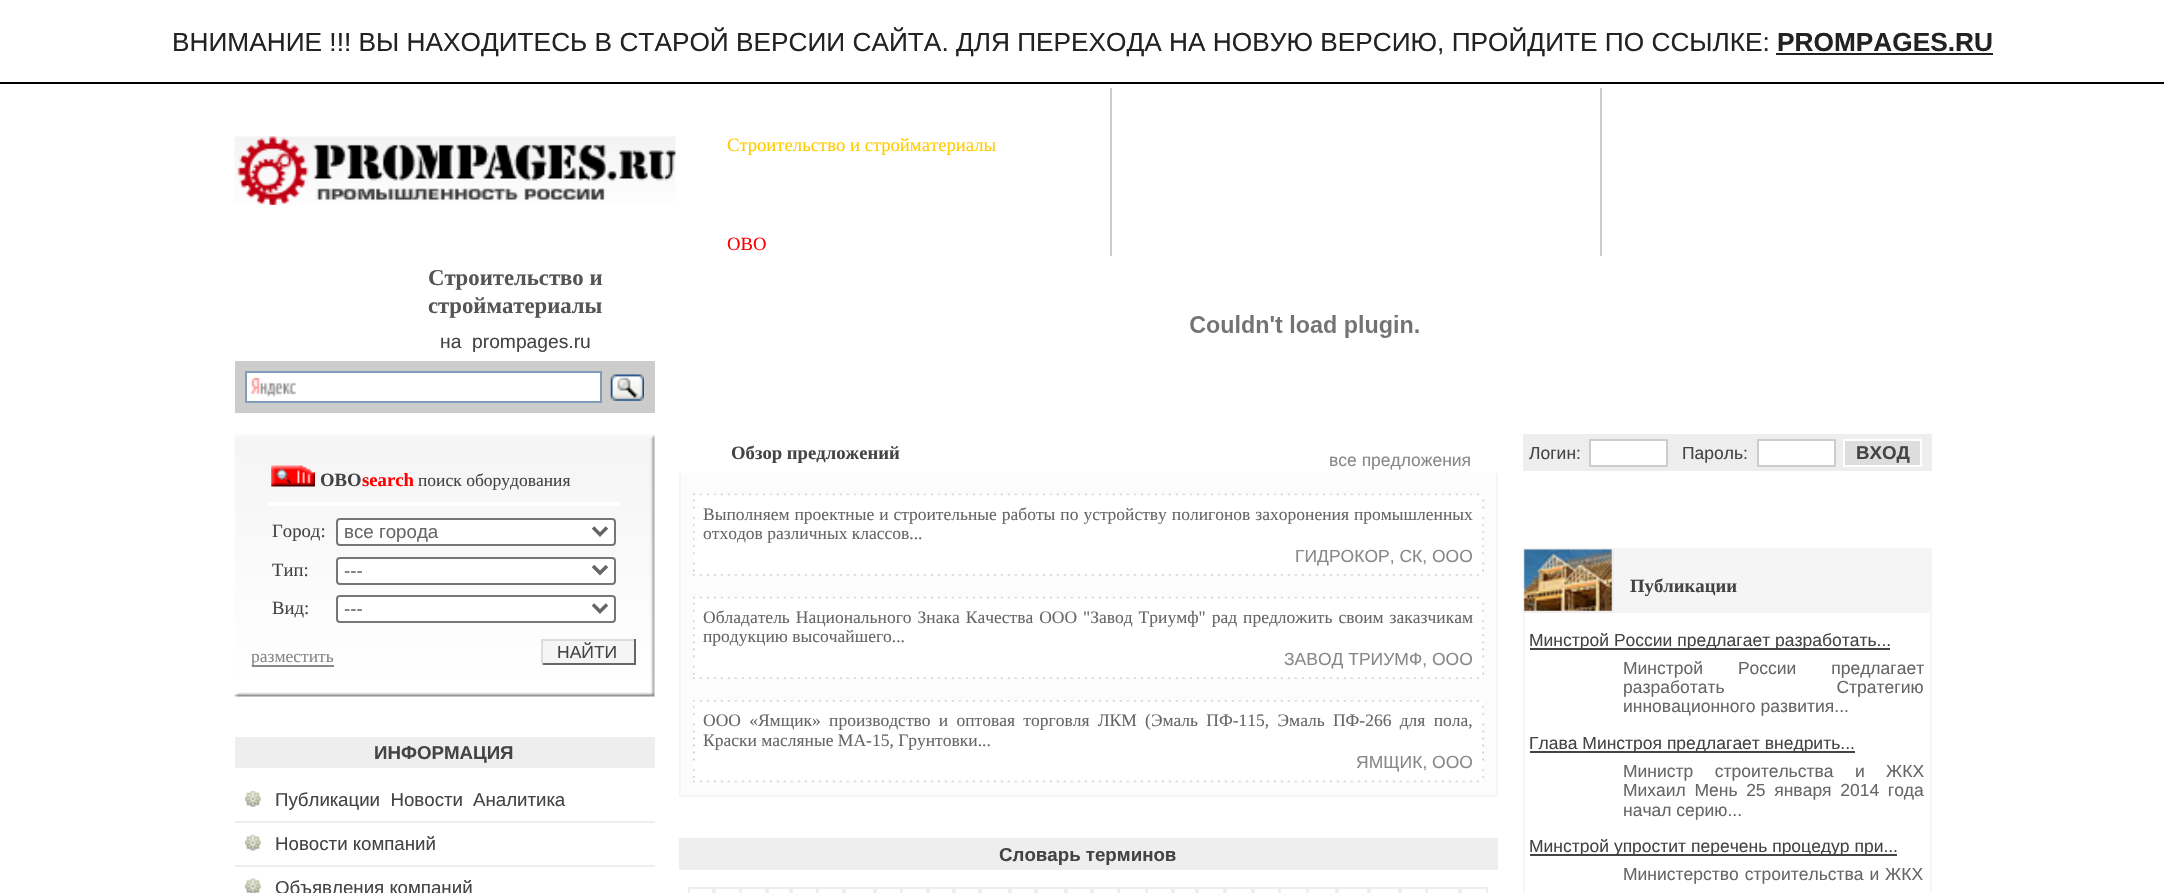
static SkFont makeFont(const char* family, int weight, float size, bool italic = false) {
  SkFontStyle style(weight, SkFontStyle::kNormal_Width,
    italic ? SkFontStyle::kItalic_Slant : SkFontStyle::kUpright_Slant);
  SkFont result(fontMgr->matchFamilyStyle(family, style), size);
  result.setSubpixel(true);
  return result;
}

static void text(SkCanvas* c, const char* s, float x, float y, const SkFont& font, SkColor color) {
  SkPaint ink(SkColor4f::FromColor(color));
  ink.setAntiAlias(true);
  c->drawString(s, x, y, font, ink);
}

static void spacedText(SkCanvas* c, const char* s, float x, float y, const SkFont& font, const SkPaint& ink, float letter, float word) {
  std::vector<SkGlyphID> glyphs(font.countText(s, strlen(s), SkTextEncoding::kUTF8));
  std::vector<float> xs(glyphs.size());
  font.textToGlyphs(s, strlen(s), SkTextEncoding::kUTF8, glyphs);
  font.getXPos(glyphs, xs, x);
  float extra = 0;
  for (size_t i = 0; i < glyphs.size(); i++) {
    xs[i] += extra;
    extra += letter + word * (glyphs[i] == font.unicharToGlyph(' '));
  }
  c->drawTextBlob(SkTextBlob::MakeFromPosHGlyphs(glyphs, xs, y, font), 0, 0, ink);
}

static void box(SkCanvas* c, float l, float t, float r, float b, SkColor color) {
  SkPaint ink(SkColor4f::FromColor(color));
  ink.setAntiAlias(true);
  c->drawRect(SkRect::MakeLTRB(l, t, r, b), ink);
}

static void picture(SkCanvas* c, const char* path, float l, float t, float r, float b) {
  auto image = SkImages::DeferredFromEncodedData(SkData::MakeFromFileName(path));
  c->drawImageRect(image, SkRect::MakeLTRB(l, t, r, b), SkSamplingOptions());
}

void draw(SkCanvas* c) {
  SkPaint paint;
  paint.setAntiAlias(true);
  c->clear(0xffffffff);
  box(c, 0, 82, 2164, 84, 0xff000000);
  SkFont face1 = makeFont("Liberation Sans", 400, 26.25f);
  text(c, "ВНИМАНИЕ !!! ВЫ НАХОДИТЕСЬ В СТАРОЙ ВЕРСИИ САЙТА. ДЛЯ ПЕРЕХОДА НА НОВУЮ ВЕРСИЮ, ПРОЙДИТЕ ПО ССЫЛКЕ:", 172, 51, face1, 0xff222222);
  SkFont face2 = makeFont("Liberation Sans", 700, 26.25f);
  text(c, "PROMPAGES.RU", 1777, 51, face2, 0xff222222);
  box(c, 1776, 53, 1993, 55, 0xff222222);
  picture(c, "img_01.png", 234, 136, 676, 205);
  SkFont face3 = makeFont("Liberation Serif", 400, 18.7f);
  text(c, "Строительство и стройматериалы", 727, 151, face3, 0xffffcc00);
  box(c, 1110, 88, 1112, 256, 0xffcccccc);
  box(c, 1600, 88, 1602, 256, 0xffcccccc);
  text(c, "OBO", 727, 250, face3, 0xffff0000);
  SkFont face4 = makeFont("Liberation Serif", 700, 22.75f);
  text(c, "Строительство и", 428, 285, face4, 0xff555555);
  text(c, "стройматериалы", 428, 313, face4, 0xff555555);
  SkFont face5 = makeFont("Liberation Sans", 400, 19.25f);
  text(c, "на  prompages.ru", 440, 348, face5, 0xff444444);
  box(c, 235, 361, 655, 413, 0xffcccccc);
  box(c, 247, 373, 600, 401, 0xffffffff);
  picture(c, "img_02.png", 250, 378, 296, 397);
  paint.setStyle(SkPaint::kStroke_Style);
  paint.setStrokeWidth(2);
  paint.setColor(0xff7f9db9);
  c->drawRect(SkRect::MakeLTRB(246, 372, 601, 402), paint);
  picture(c, "img_03.png", 610, 374, 644, 401);
  picture(c, "img_04.png", 1190, 315, 1419, 338);
  picture(c, "img_05.png", 234, 434, 655, 697);
  box(c, 268, 502, 620, 506, 0xffffffff);
  picture(c, "img_06.png", 271, 465, 315, 487);
  SkFont face6 = makeFont("Liberation Serif", 700, 18.7f);
  text(c, "OBO", 320, 486, face6, 0xff444444);
  text(c, "search", 362, 486, face6, 0xffff0000);
  SkFont face7 = makeFont("Liberation Serif", 400, 17.5f);
  text(c, "поиск оборудования", 418, 486, face7, 0xff444444);
  text(c, "Город:", 272, 537, face3, 0xff444444);
  paint.setStyle(SkPaint::kFill_Style);
  paint.setColor(0xffffffff);
  c->drawRoundRect(SkRect::MakeLTRB(337, 519, 615, 545), 3, 3, paint);
  paint.setStyle(SkPaint::kStroke_Style);
  paint.setColor(0xff767676);
  c->drawRoundRect(SkRect::MakeLTRB(337, 519, 615, 545), 3, 3, paint);
  paint.setStrokeWidth(3.5f);
  paint.setColor(0xff666666);
  c->drawPath(SkPathBuilder().moveTo(593, 527.5f).lineTo(600, 534.5f).lineTo(607, 527.5f).detach(), paint);
  SkFont face8 = makeFont("Liberation Sans", 400, 18.7f);
  text(c, "все города", 344, 538, face8, 0xff666666);
  text(c, "Тип:", 272, 576, face3, 0xff444444);
  paint.setStyle(SkPaint::kFill_Style);
  paint.setColor(0xffffffff);
  c->drawRoundRect(SkRect::MakeLTRB(337, 558, 615, 584), 3, 3, paint);
  paint.setStyle(SkPaint::kStroke_Style);
  paint.setStrokeWidth(2);
  paint.setColor(0xff767676);
  c->drawRoundRect(SkRect::MakeLTRB(337, 558, 615, 584), 3, 3, paint);
  paint.setStrokeWidth(3.5f);
  paint.setColor(0xff666666);
  c->drawPath(SkPathBuilder().moveTo(593, 566).lineTo(600, 573).lineTo(607, 566).detach(), paint);
  text(c, "---", 344, 577, face8, 0xff666666);
  text(c, "Вид:", 272, 614, face3, 0xff444444);
  paint.setStyle(SkPaint::kFill_Style);
  paint.setColor(0xffffffff);
  c->drawRoundRect(SkRect::MakeLTRB(337, 596, 615, 622), 3, 3, paint);
  paint.setStyle(SkPaint::kStroke_Style);
  paint.setStrokeWidth(2);
  paint.setColor(0xff767676);
  c->drawRoundRect(SkRect::MakeLTRB(337, 596, 615, 622), 3, 3, paint);
  paint.setStrokeWidth(3.5f);
  paint.setColor(0xff666666);
  c->drawPath(SkPathBuilder().moveTo(593, 604.5f).lineTo(600, 611.5f).lineTo(607, 604.5f).detach(), paint);
  text(c, "---", 344, 615, face8, 0xff666666);
  box(c, 543, 641, 634, 663, 0xfff5f5f5);
  box(c, 541, 639, 635, 641, 0xffdddddd);
  box(c, 634, 639, 636, 665, 0xff666666);
  box(c, 541, 663, 635, 665, 0xff666666);
  box(c, 541, 639, 543, 665, 0xffdddddd);
  SkFont face9 = makeFont("Liberation Sans", 400, 17.5f);
  text(c, "НАЙТИ", 557, 658, face9, 0xff444444);
  box(c, 252, 665, 334, 667, 0xff888888);
  text(c, "разместить", 251, 662, face7, 0xff888888);
  box(c, 235, 737, 655, 768, 0xffeeeeee);
  SkFont face10 = makeFont("Liberation Sans", 700, 18.7f);
  text(c, "ИНФОРМАЦИЯ", 374, 759, face10, 0xff444444);
  box(c, 235, 821, 655, 823, 0xffeeeeee);
  picture(c, "img_07.png", 245, 791, 261, 807);
  text(c, "Публикации  Новости", 275, 806, face8, 0xff444444);
  text(c, "Аналитика", 473, 806, face8, 0xff444444);
  box(c, 235, 865, 655, 867, 0xffeeeeee);
  picture(c, "img_08.png", 245, 834, 261, 851);
  text(c, "Новости компаний", 275, 850, face8, 0xff444444);
  picture(c, "img_09.png", 245, 878, 261, 893);
  text(c, "Объявления компаний", 275, 894, face8, 0xff444444);
  text(c, "Обзор предложений", 731, 459, face6, 0xff444444);
  text(c, "все предложения", 1329, 466, face9, 0xff888888);
  box(c, 681, 473, 1496, 795, 0xfffcfcfc);
  box(c, 1496, 473, 1498, 796, 0xfff5f5f5);
  box(c, 679, 795, 1498, 797, 0xfff5f5f5);
  box(c, 679, 473, 681, 796, 0xfff5f5f5);
  box(c, 693, 494, 1484, 576, 0xffffffff);
  picture(c, "img_10.png", 693, 493, 1484, 496);
  picture(c, "img_11.png", 693, 499, 695, 572);
  paint.setStyle(SkPaint::kFill_Style);
  spacedText(c, "Выполняем проектные и строительные работы по устройству полигонов захоронения промышленных", 703, 520, face7, paint, 0, 0.6f);
  text(c, "отходов различных классов...", 703, 539, face7, 0xff666666);
  text(c, "ГИДРОКОР, СК, ООО", 1295, 562, face9, 0xff888888);
  picture(c, "img_12.png", 1482, 499, 1484, 572);
  picture(c, "img_13.png", 693, 574, 1484, 576);
  box(c, 693, 597, 1484, 679, 0xffffffff);
  picture(c, "img_14.png", 693, 596, 1484, 599);
  picture(c, "img_15.png", 693, 602, 695, 675);
  spacedText(c, "Обладатель Национального Знака Качества ООО \"Завод Триумф\" рад предложить своим заказчикам", 703, 623, face7, paint, 0, 1.6f);
  text(c, "продукцию высочайшего...", 703, 642, face7, 0xff666666);
  text(c, "ЗАВОД ТРИУМФ, ООО", 1284, 665, face9, 0xff888888);
  picture(c, "img_16.png", 1482, 602, 1484, 675);
  picture(c, "img_17.png", 693, 677, 1484, 679);
  box(c, 693, 700, 1484, 782, 0xffffffff);
  picture(c, "img_13.png", 693, 700, 1484, 702);
  picture(c, "img_18.png", 693, 705, 695, 779);
  spacedText(c, "ООО «Ямщик» производство и оптовая торговля ЛКМ (Эмаль ПФ-115, Эмаль ПФ-266 для пола,", 703, 726, face7, paint, 0, 3.9f);
  text(c, "Краски масляные МА-15, Грунтовки...", 703, 746, face7, 0xff666666);
  text(c, "ЯМЩИК, ООО", 1356, 768, face9, 0xff888888);
  picture(c, "img_19.png", 1482, 705, 1484, 779);
  picture(c, "img_20.png", 693, 780, 1484, 783);
  box(c, 679, 838, 1498, 870, 0xffeeeeee);
  text(c, "Словарь терминов", 999, 861, face10, 0xff444444);
  box(c, 688, 887, 1488, 889, 0xffeeeeee);
  box(c, 712, 887, 716, 893, 0xffeeeeee);
  box(c, 688, 887, 690, 893, 0xffeeeeee);
  box(c, 739, 887, 742, 893, 0xffeeeeee);
  box(c, 765, 887, 769, 893, 0xffeeeeee);
  box(c, 789, 887, 793, 893, 0xffeeeeee);
  box(c, 816, 887, 819, 893, 0xffeeeeee);
  box(c, 842, 887, 846, 893, 0xffeeeeee);
  box(c, 873, 887, 877, 893, 0xffeeeeee);
  box(c, 900, 887, 903, 893, 0xffeeeeee);
  box(c, 926, 887, 930, 893, 0xffeeeeee);
  box(c, 952, 887, 956, 893, 0xffeeeeee);
  box(c, 978, 887, 982, 893, 0xffeeeeee);
  box(c, 1008, 887, 1012, 893, 0xffeeeeee);
  box(c, 1034, 887, 1038, 893, 0xffeeeeee);
  box(c, 1064, 887, 1068, 893, 0xffeeeeee);
  box(c, 1090, 887, 1094, 893, 0xffeeeeee);
  box(c, 1117, 887, 1120, 893, 0xffeeeeee);
  box(c, 1145, 887, 1148, 893, 0xffeeeeee);
  box(c, 1171, 887, 1175, 893, 0xffeeeeee);
  box(c, 1195, 887, 1199, 893, 0xffeeeeee);
  box(c, 1223, 887, 1227, 893, 0xffeeeeee);
  box(c, 1251, 887, 1255, 893, 0xffeeeeee);
  box(c, 1278, 887, 1281, 893, 0xffeeeeee);
  box(c, 1306, 887, 1309, 893, 0xffeeeeee);
  box(c, 1335, 887, 1339, 893, 0xffeeeeee);
  box(c, 1367, 887, 1371, 893, 0xffeeeeee);
  box(c, 1398, 887, 1402, 893, 0xffeeeeee);
  box(c, 1425, 887, 1428, 893, 0xffeeeeee);
  box(c, 1458, 887, 1462, 893, 0xffeeeeee);
  box(c, 1486, 887, 1488, 893, 0xffeeeeee);
  box(c, 1523, 434, 1932, 471, 0xffeeeeee);
  text(c, "Логин:", 1529, 459, face9, 0xff444444);
  paint.setColor(0xffffffff);
  c->drawRect(SkRect::MakeLTRB(1590, 440, 1667, 466), paint);
  paint.setStyle(SkPaint::kStroke_Style);
  paint.setStrokeWidth(2);
  paint.setColor(0xffcccccc);
  c->drawRect(SkRect::MakeLTRB(1590, 440, 1667, 466), paint);
  text(c, "Пароль:", 1682, 459, face9, 0xff444444);
  paint.setStyle(SkPaint::kFill_Style);
  paint.setColor(0xffffffff);
  c->drawRect(SkRect::MakeLTRB(1758, 440, 1835, 466), paint);
  paint.setStyle(SkPaint::kStroke_Style);
  paint.setColor(0xffcccccc);
  c->drawRect(SkRect::MakeLTRB(1758, 440, 1835, 466), paint);
  paint.setStyle(SkPaint::kFill_Style);
  paint.setColor(0xffdddddd);
  c->drawRect(SkRect::MakeLTRB(1844, 440, 1921, 466), paint);
  paint.setStyle(SkPaint::kStroke_Style);
  paint.setColor(0xffffffff);
  c->drawRect(SkRect::MakeLTRB(1844, 440, 1921, 466), paint);
  text(c, "ВХОД", 1856, 459, face10, 0xff444444);
  paint.setStyle(SkPaint::kFill_Style);
  paint.setColor(0xfff5f5f5);
  c->drawRect(SkRect::MakeLTRB(1524, 549, 1613, 612), paint);
  paint.setStyle(SkPaint::kStroke_Style);
  paint.setColor(0xffeeeeee);
  c->drawRect(SkRect::MakeLTRB(1524, 549, 1613, 612), paint);
  picture(c, "img_21.png", 1524, 549, 1612, 611);
  box(c, 1614, 548, 1932, 613, 0xfff5f5f5);
  text(c, "Публикации", 1630, 592, face6, 0xff444444);
  box(c, 1930, 613, 1932, 893, 0xfff5f5f5);
  box(c, 1523, 613, 1525, 893, 0xfff5f5f5);
  box(c, 1530, 648, 1890, 650, 0xff444444);
  text(c, "Минстрой России предлагает разработать...", 1529, 646, face9, 0xff444444);
  paint.setStyle(SkPaint::kFill_Style);
  paint.setColor(0xff666666);
  spacedText(c, "Минстрой России предлагает", 1623, 674, face9, paint, 0, 30);
  spacedText(c, "разработать Стратегию", 1623, 693, face9, paint, 0, 107);
  text(c, "инновационного развития...", 1623, 712, face9, 0xff666666);
  box(c, 1530, 751, 1839, 753, 0xff444444);
  text(c, "Глава Минстроя предлагает внедрить...", 1529, 749, face9, 0xff444444);
  box(c, 1839, 751, 1855, 753, 0xff444444);
  spacedText(c, "Министр строительства и ЖКХ", 1623, 777, face9, paint, 0, 16.5f);
  spacedText(c, "Михаил Мень 25 января 2014 года", 1623, 796, face9, paint, 0, 3.75f);
  text(c, "начал серию...", 1623, 816, face9, 0xff666666);
  box(c, 1530, 854, 1897, 856, 0xff444444);
  text(c, "Минстрой упростит перечень процедур при...", 1529, 852, face9, 0xff444444);
  spacedText(c, "Министерство строительства и ЖКХ", 1623, 880, face9, paint, 0, 1);
}
